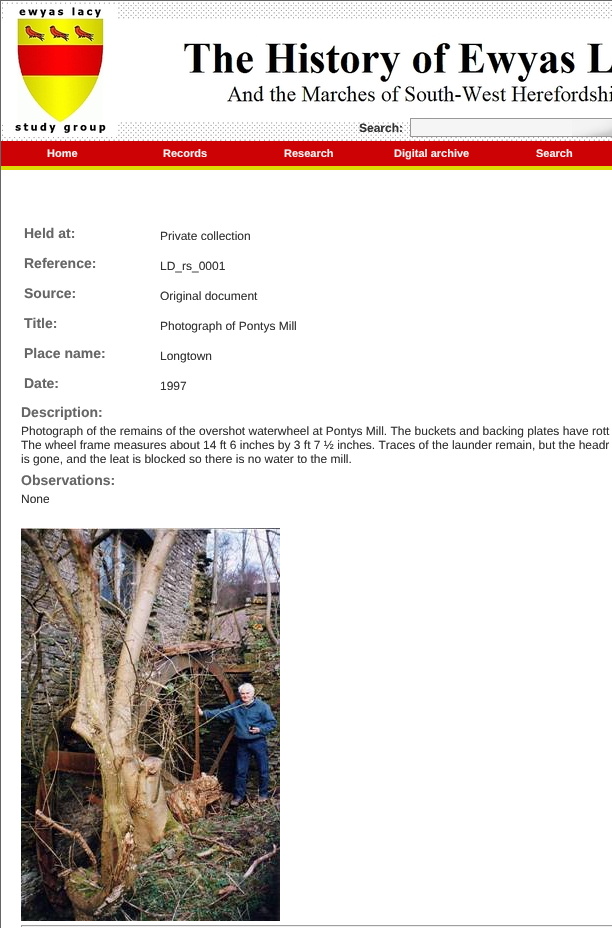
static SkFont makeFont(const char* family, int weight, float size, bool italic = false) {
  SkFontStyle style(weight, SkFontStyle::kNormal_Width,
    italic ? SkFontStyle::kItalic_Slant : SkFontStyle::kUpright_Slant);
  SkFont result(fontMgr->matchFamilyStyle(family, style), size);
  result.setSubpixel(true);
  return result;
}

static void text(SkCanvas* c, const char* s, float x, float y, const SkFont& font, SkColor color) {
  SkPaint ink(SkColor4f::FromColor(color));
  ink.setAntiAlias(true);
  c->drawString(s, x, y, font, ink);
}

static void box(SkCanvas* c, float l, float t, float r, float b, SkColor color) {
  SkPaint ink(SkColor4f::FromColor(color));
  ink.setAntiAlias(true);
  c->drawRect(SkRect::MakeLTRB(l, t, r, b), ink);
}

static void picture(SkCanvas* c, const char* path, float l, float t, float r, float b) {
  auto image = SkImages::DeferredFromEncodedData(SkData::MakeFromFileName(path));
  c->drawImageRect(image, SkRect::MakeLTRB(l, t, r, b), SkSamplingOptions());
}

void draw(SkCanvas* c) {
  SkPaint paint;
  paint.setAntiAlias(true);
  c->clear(0xff666666);
  picture(c, "img_01.png", 1, 1, 612, 141);
  SkFont face1 = makeFont("Liberation Sans", 700, 12);
  text(c, "Search:", 359, 132, face1, 0xff313131);
  box(c, 411, 119, 612, 136, 0xfff5f5f5);
  picture(c, "img_02.png", 572, 120, 612, 136);
  paint.setStyle(SkPaint::kStroke_Style);
  paint.setStrokeWidth(1);
  paint.setColor(0xff999999);
  c->drawRect(SkRect::MakeLTRB(410.5f, 118.5f, 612.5f, 136.5f), paint);
  box(c, 1, 141, 612, 166, 0xffcc0204);
  SkFont face2 = makeFont("Liberation Sans", 700, 11);
  text(c, "Home", 47, 157, face2, 0xffeeeeee);
  text(c, "Records", 163, 157, face2, 0xffeeeeee);
  text(c, "Research", 284, 157, face2, 0xffeeeeee);
  text(c, "Digital archive", 394, 157, face2, 0xffeeeeee);
  text(c, "Search", 536, 157, face2, 0xffeeeeee);
  box(c, 0, 166, 612, 170, 0xffdcdc04);
  box(c, 0, 166, 1, 170, 0xff666666);
  box(c, 1, 170, 612, 928, 0xffffffff);
  SkFont face3 = makeFont("Liberation Sans", 700, 14);
  text(c, "Held at:", 24, 238, face3, 0xff666666);
  SkFont face4 = makeFont("Liberation Sans", 400, 12);
  text(c, "Private collection", 160, 240, face4, 0xff313131);
  text(c, "Reference:", 24, 268, face3, 0xff666666);
  text(c, "LD_rs_0001", 160, 270, face4, 0xff313131);
  text(c, "Source:", 24, 298, face3, 0xff666666);
  text(c, "Original document", 160, 300, face4, 0xff313131);
  text(c, "Title:", 24, 328, face3, 0xff666666);
  text(c, "Photograph of Pontys Mill", 160, 330, face4, 0xff313131);
  text(c, "Place name:", 24, 358, face3, 0xff666666);
  text(c, "Longtown", 160, 360, face4, 0xff313131);
  text(c, "Date:", 24, 388, face3, 0xff666666);
  text(c, "1997", 160, 390, face4, 0xff313131);
  text(c, "Description:", 21, 417, face3, 0xff666666);
  text(c, "Photograph of the remains of the overshot waterwheel at Pontys Mill. The buckets and backing plates have rott", 21, 435, face4, 0xff313131);
  text(c, "The wheel frame measures about 14 ft 6 inches by 3 ft 7 ½ inches. Traces of the launder remain, but the headr", 21, 449, face4, 0xff313131);
  text(c, "is gone, and the leat is blocked so there is no water to the mill.", 21, 463, face4, 0xff313131);
  text(c, "Observations:", 21, 485, face3, 0xff666666);
  text(c, "None", 21, 503, face4, 0xff313131);
  picture(c, "img_03.png", 21, 528, 280, 921);
  box(c, 21, 925, 612, 926, 0xff9f9f9f);
  box(c, 21, 926, 612, 927, 0xffeeeeee);
  box(c, 21, 925, 22, 927, 0xff9f9f9f);
}
